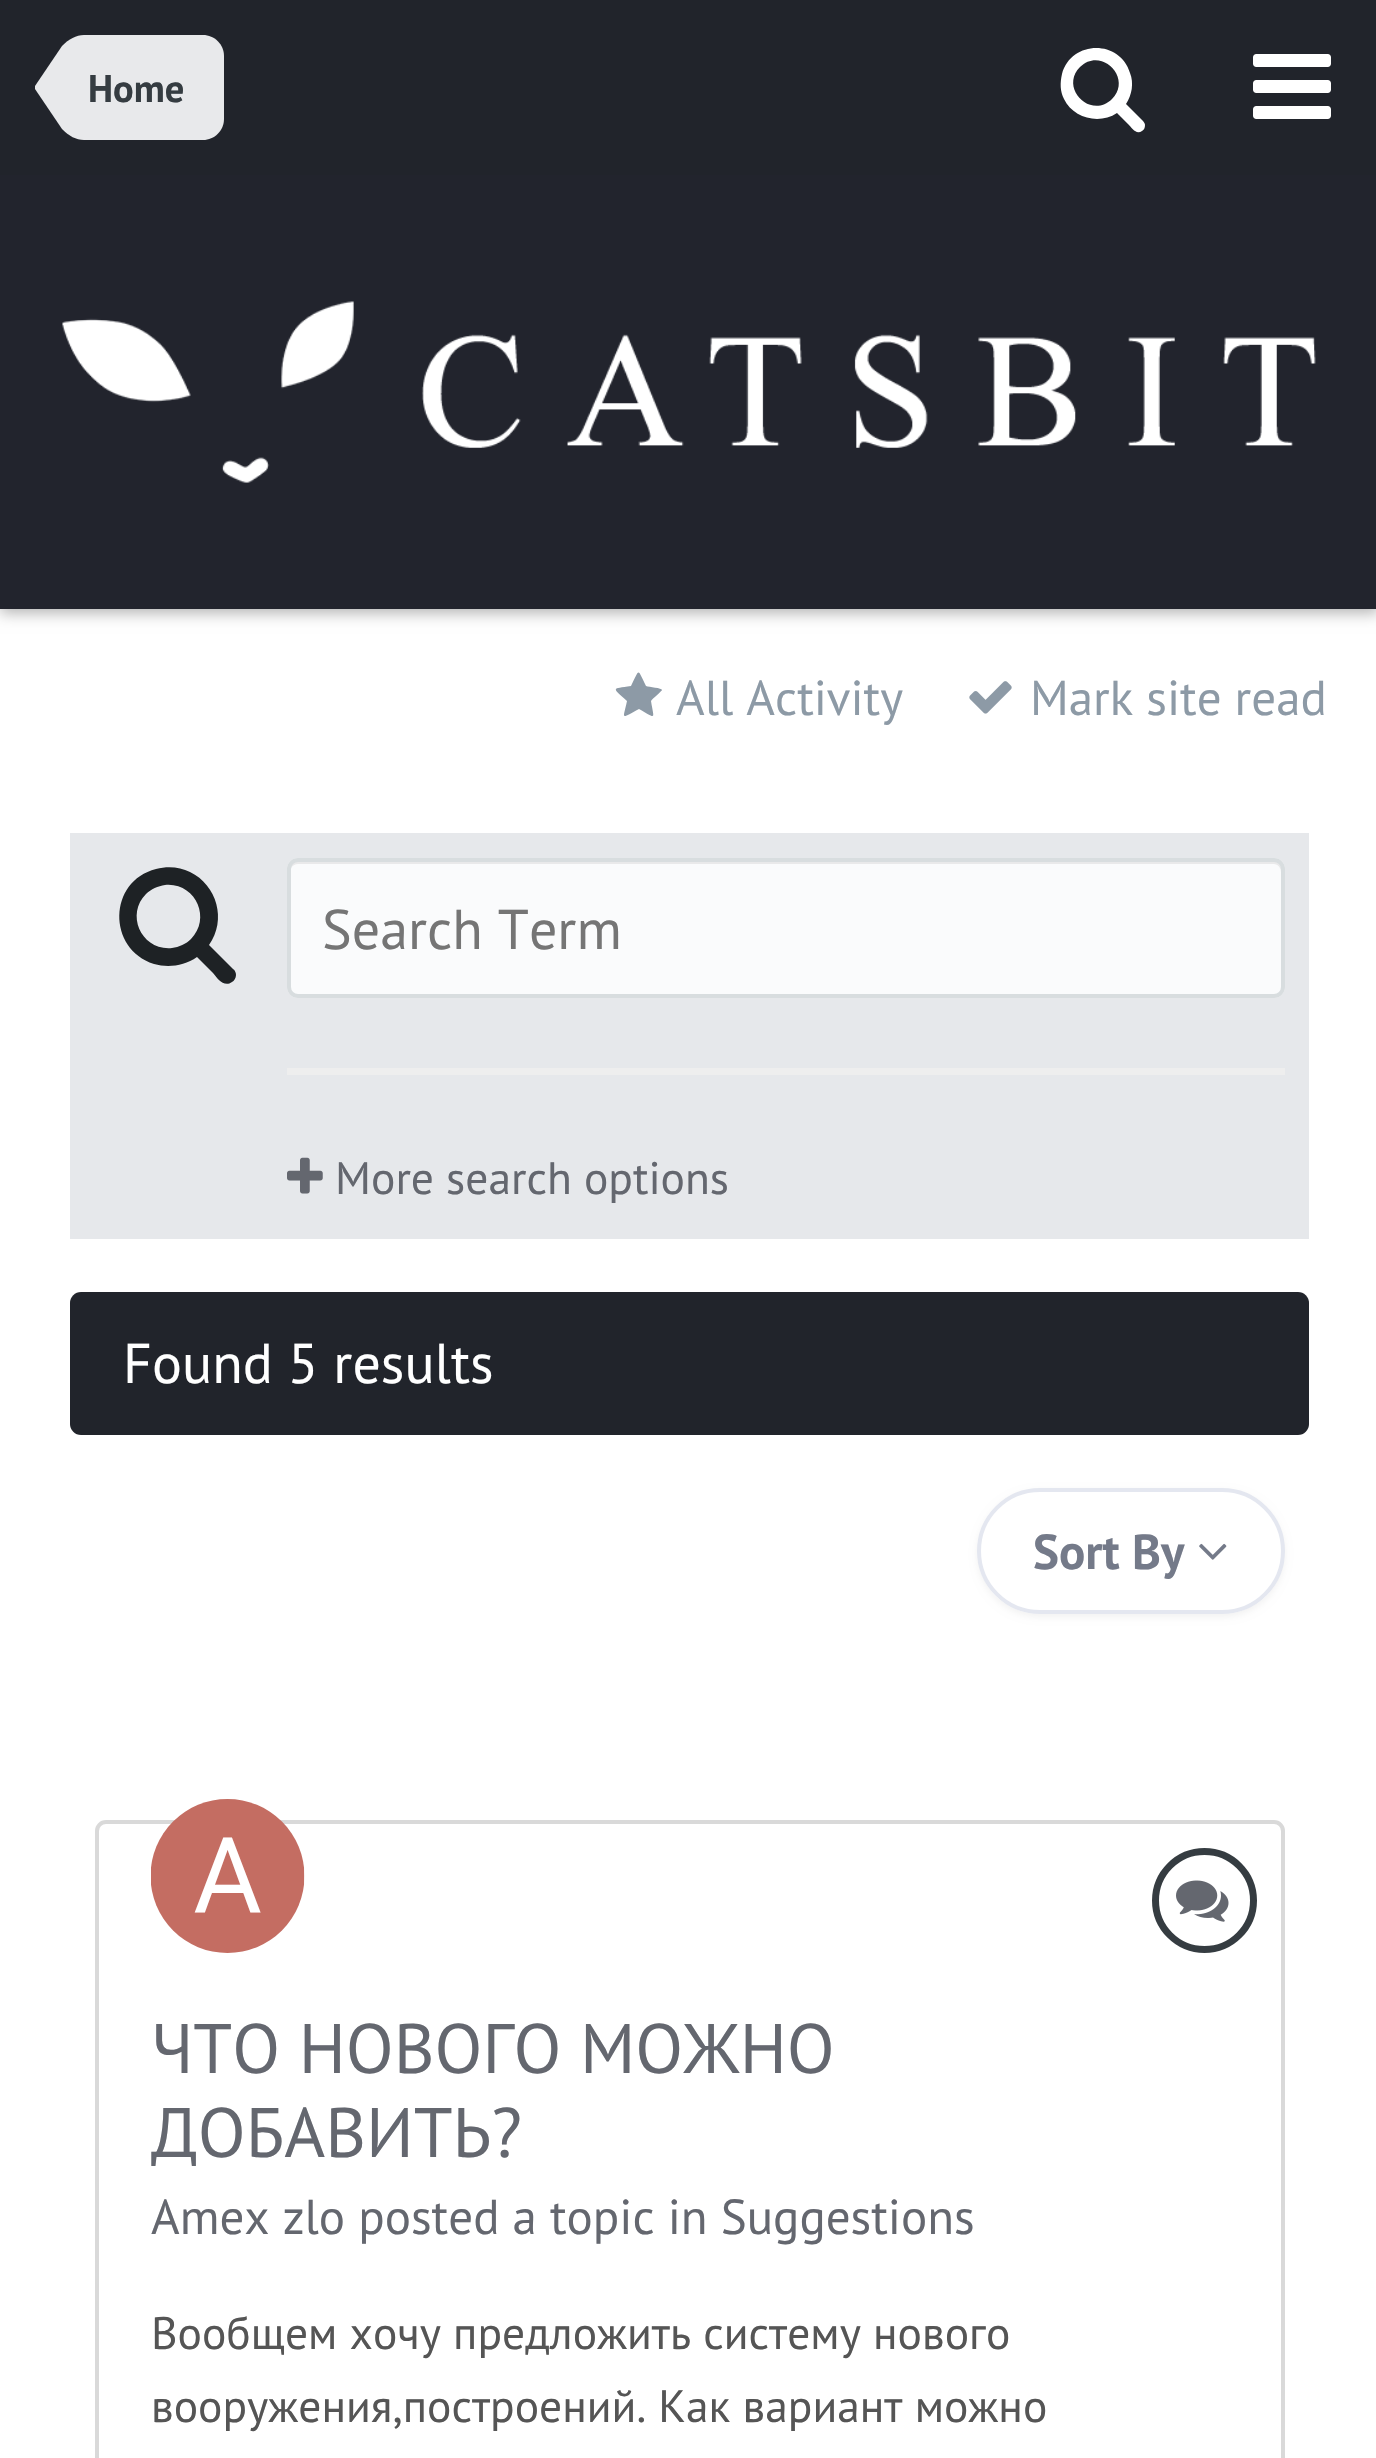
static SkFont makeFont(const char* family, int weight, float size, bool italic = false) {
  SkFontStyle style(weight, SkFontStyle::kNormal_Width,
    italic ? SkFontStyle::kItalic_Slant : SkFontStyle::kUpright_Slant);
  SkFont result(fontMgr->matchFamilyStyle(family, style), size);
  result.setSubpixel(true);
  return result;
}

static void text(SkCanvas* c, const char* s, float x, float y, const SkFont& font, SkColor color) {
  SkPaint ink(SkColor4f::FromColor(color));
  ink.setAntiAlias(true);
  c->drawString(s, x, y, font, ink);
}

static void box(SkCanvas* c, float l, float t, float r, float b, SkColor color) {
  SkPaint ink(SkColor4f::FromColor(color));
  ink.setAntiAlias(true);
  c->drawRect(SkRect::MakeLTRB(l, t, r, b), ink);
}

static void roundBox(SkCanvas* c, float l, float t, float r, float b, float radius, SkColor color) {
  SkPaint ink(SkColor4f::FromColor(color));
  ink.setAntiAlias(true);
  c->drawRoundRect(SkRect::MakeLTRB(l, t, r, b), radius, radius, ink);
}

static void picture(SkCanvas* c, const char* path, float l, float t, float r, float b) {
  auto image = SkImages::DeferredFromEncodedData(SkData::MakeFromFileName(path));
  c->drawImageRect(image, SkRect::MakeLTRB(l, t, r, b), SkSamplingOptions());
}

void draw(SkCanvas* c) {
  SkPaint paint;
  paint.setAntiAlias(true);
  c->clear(0xffffffff);
  paint.setColor(0x4d000000);
  paint.setMaskFilter(SkMaskFilter::MakeBlur(kNormal_SkBlurStyle, 7));
  c->drawRect(SkRect::MakeLTRB(0, 4, 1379, 613), paint);
  paint.setMaskFilter(nullptr);
  box(c, 0, 175, 1376, 609, 0xff22242d);
  box(c, 0, 0, 1376, 175, 0xff21242b);
  paint.setColor(0xffe8e9eb);
  c->drawPath(SkPathBuilder().moveTo(84, 35).lineTo(203, 35).cubicTo(214.5f, 35, 224, 44.5f, 224, 56).lineTo(224, 119).cubicTo(224, 130.5f, 214.5f, 140, 203, 140).lineTo(84, 140).close().detach(), paint);
  c->drawPath(SkPathBuilder().moveTo(35, 89).lineTo(35, 88).lineTo(84, 88).lineTo(84, 140).cubicTo(76, 140, 69, 136, 62, 129).close().detach(), paint);
  c->drawPath(SkPathBuilder().moveTo(84, 35).lineTo(84, 88).lineTo(35, 88).lineTo(35, 86).lineTo(62, 46).cubicTo(69, 39, 76, 35, 84, 35).close().detach(), paint);
  SkFont face1 = makeFont("PT Sans", 700, 38.5f);
  text(c, "Home", 88, 102, face1, 0xff353c41);
  paint.setColor(0xffffffff);
  c->drawPath(SkPathBuilder().moveTo(1112, 99).cubicTo(1133, 78, 1101, 46, 1080, 67).cubicTo(1059, 88, 1091, 120, 1112, 99).close().moveTo(1145, 125).cubicTo(1145, 128, 1144, 130, 1142, 131).cubicTo(1136, 135, 1132, 128, 1128, 124).lineTo(1117, 113).cubicTo(1099, 125, 1073, 118, 1064, 99).cubicTo(1060, 91, 1060, 83, 1062, 74).cubicTo(1071, 40, 1120, 39, 1130, 73).cubicTo(1134, 83, 1132, 95, 1126, 104).lineTo(1143, 121).cubicTo(1144, 122, 1145, 124, 1145, 125).close().detach(), paint);
  picture(c, "img_01.png", 1253, 54, 1331, 119);
  picture(c, "img_02.png", 62, 301, 1316, 483);
  paint.setColor(0xff8d9aa6);
  c->drawPath(SkPathBuilder().moveTo(662, 690).cubicTo(662, 691, 652, 699, 651, 701).cubicTo(654, 720, 657, 719, 639, 709).cubicTo(620, 719, 623, 720, 627, 701).cubicTo(612, 687, 611, 689, 631, 686).cubicTo(640, 668, 637, 668, 646, 686).cubicTo(649, 687, 662, 688, 662, 690).close().detach(), paint);
  SkFont face2 = makeFont("PT Sans", 400, 49);
  text(c, "All Activity", 676, 715, face2, 0xff8d9aa6);
  picture(c, "img_03.png", 969, 681, 1012, 714);
  text(c, "Mark site read", 1030, 715, face2, 0xff8d9aa6);
  box(c, 70, 833, 1309, 1239, 0xffe6e8eb);
  paint.setColor(0xff1e2225);
  c->drawPath(SkPathBuilder().moveTo(191, 939).cubicTo(212, 918, 195, 882, 165, 885).cubicTo(158, 886, 151, 889, 146, 894).cubicTo(125, 915, 142, 951, 172, 948).cubicTo(179, 947, 186, 944, 191, 939).close().moveTo(236, 975).cubicTo(236, 978, 234, 981, 232, 982).cubicTo(224, 988, 217, 978, 213, 973).lineTo(197, 957).cubicTo(184, 966, 168, 968, 154, 964).cubicTo(107, 949, 108, 881, 156, 869).cubicTo(168, 866, 180, 867, 190, 872).cubicTo(217, 885, 227, 920, 209, 945).lineTo(233, 969).cubicTo(235, 970, 236, 973, 236, 975).close().detach(), paint);
  roundBox(c, 287, 858, 1285, 998, 11, 0xfffafbfc);
  paint.setColor(0xffe9e9ea);
  c->drawPath(SkPathBuilder().moveTo(298, 864).lineTo(1274, 864).cubicTo(1278, 864, 1281, 868, 1281, 872).lineTo(1281, 868).cubicTo(1281, 864, 1278, 861, 1274, 861).lineTo(298, 861).cubicTo(294, 861, 291, 864, 291, 868).cubicTo(292, 866, 295, 864, 298, 864).close().detach(), paint);
  paint.setStyle(SkPaint::kStroke_Style);
  paint.setStrokeWidth(4);
  paint.setColor(0xffd8dddf);
  c->drawRoundRect(SkRect::MakeLTRB(289, 860, 1283, 996), 9, 9, paint);
  SkFont face3 = makeFont("PT Sans", 400, 56);
  text(c, "Search Term", 322, 949, face3, 0xff757575);
  box(c, 287, 1068, 1285, 1075, 0xffeeeeee);
  picture(c, "img_04.png", 287, 1157, 323, 1194);
  SkFont face4 = makeFont("PT Sans", 400, 45.5f);
  text(c, "More search options", 335, 1194, face4, 0xff64676f);
  roundBox(c, 70, 1292, 1309, 1435, 11, 0xff21242b);
  text(c, "Found 5 results", 123, 1383, face3, 0xffffffff);
  c->save();
  c->clipPath(SkPathBuilder(SkPathFillType::kEvenOdd).moveTo(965, 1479).lineTo(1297, 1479).lineTo(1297, 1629).lineTo(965, 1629).close().moveTo(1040, 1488).lineTo(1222, 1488).cubicTo(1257, 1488, 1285, 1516, 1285, 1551).cubicTo(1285, 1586, 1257, 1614, 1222, 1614).lineTo(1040, 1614).cubicTo(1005, 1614, 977, 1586, 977, 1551).cubicTo(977, 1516, 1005, 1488, 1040, 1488).close().detach(), true);
  paint.setStyle(SkPaint::kFill_Style);
  paint.setColor(0x0d000000);
  paint.setMaskFilter(SkMaskFilter::MakeBlur(kNormal_SkBlurStyle, 3.5f));
  c->drawRoundRect(SkRect::MakeLTRB(977, 1491, 1285, 1617), 63, 63, paint);
  paint.setMaskFilter(nullptr);
  c->restore();
  paint.setStyle(SkPaint::kStroke_Style);
  paint.setColor(0xffe4e7f0);
  c->drawRoundRect(SkRect::MakeLTRB(979, 1490, 1283, 1612), 61, 61, paint);
  SkFont face5 = makeFont("PT Sans", 700, 49);
  text(c, "Sort By", 1033, 1569, face5, 0xff747a89);
  picture(c, "img_05.png", 1199, 1543, 1227, 1560);
  paint.setColor(0xffd9d9d9);
  c->drawRoundRect(SkRect::MakeLTRB(97, 1822, 1283, 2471), 9, 9, paint);
  picture(c, "img_06.png", 151, 1799, 305, 1953);
  paint.setStrokeWidth(7);
  paint.setColor(0xff353c41);
  c->drawCircle(1204.5f, 1900.5f, 49, paint);
  picture(c, "img_07.png", 1176, 1880, 1229, 1922);
  SkFont face6 = makeFont("PT Sans", 400, 70);
  text(c, "ЧТО НОВОГО МОЖНО", 151, 2073, face6, 0xff64676f);
  text(c, "ДОБАВИТЬ?", 151, 2157, face6, 0xff64676f);
  text(c, "Amex zlo posted a topic in Suggestions", 151, 2234, face2, 0xff64676f);
  text(c, "Вообщем хочу предложить систему нового", 151, 2349, face4, 0xff555555);
  text(c, "вооружения,построений. Как вариант можно", 151, 2422, face4, 0xff555555);
}
